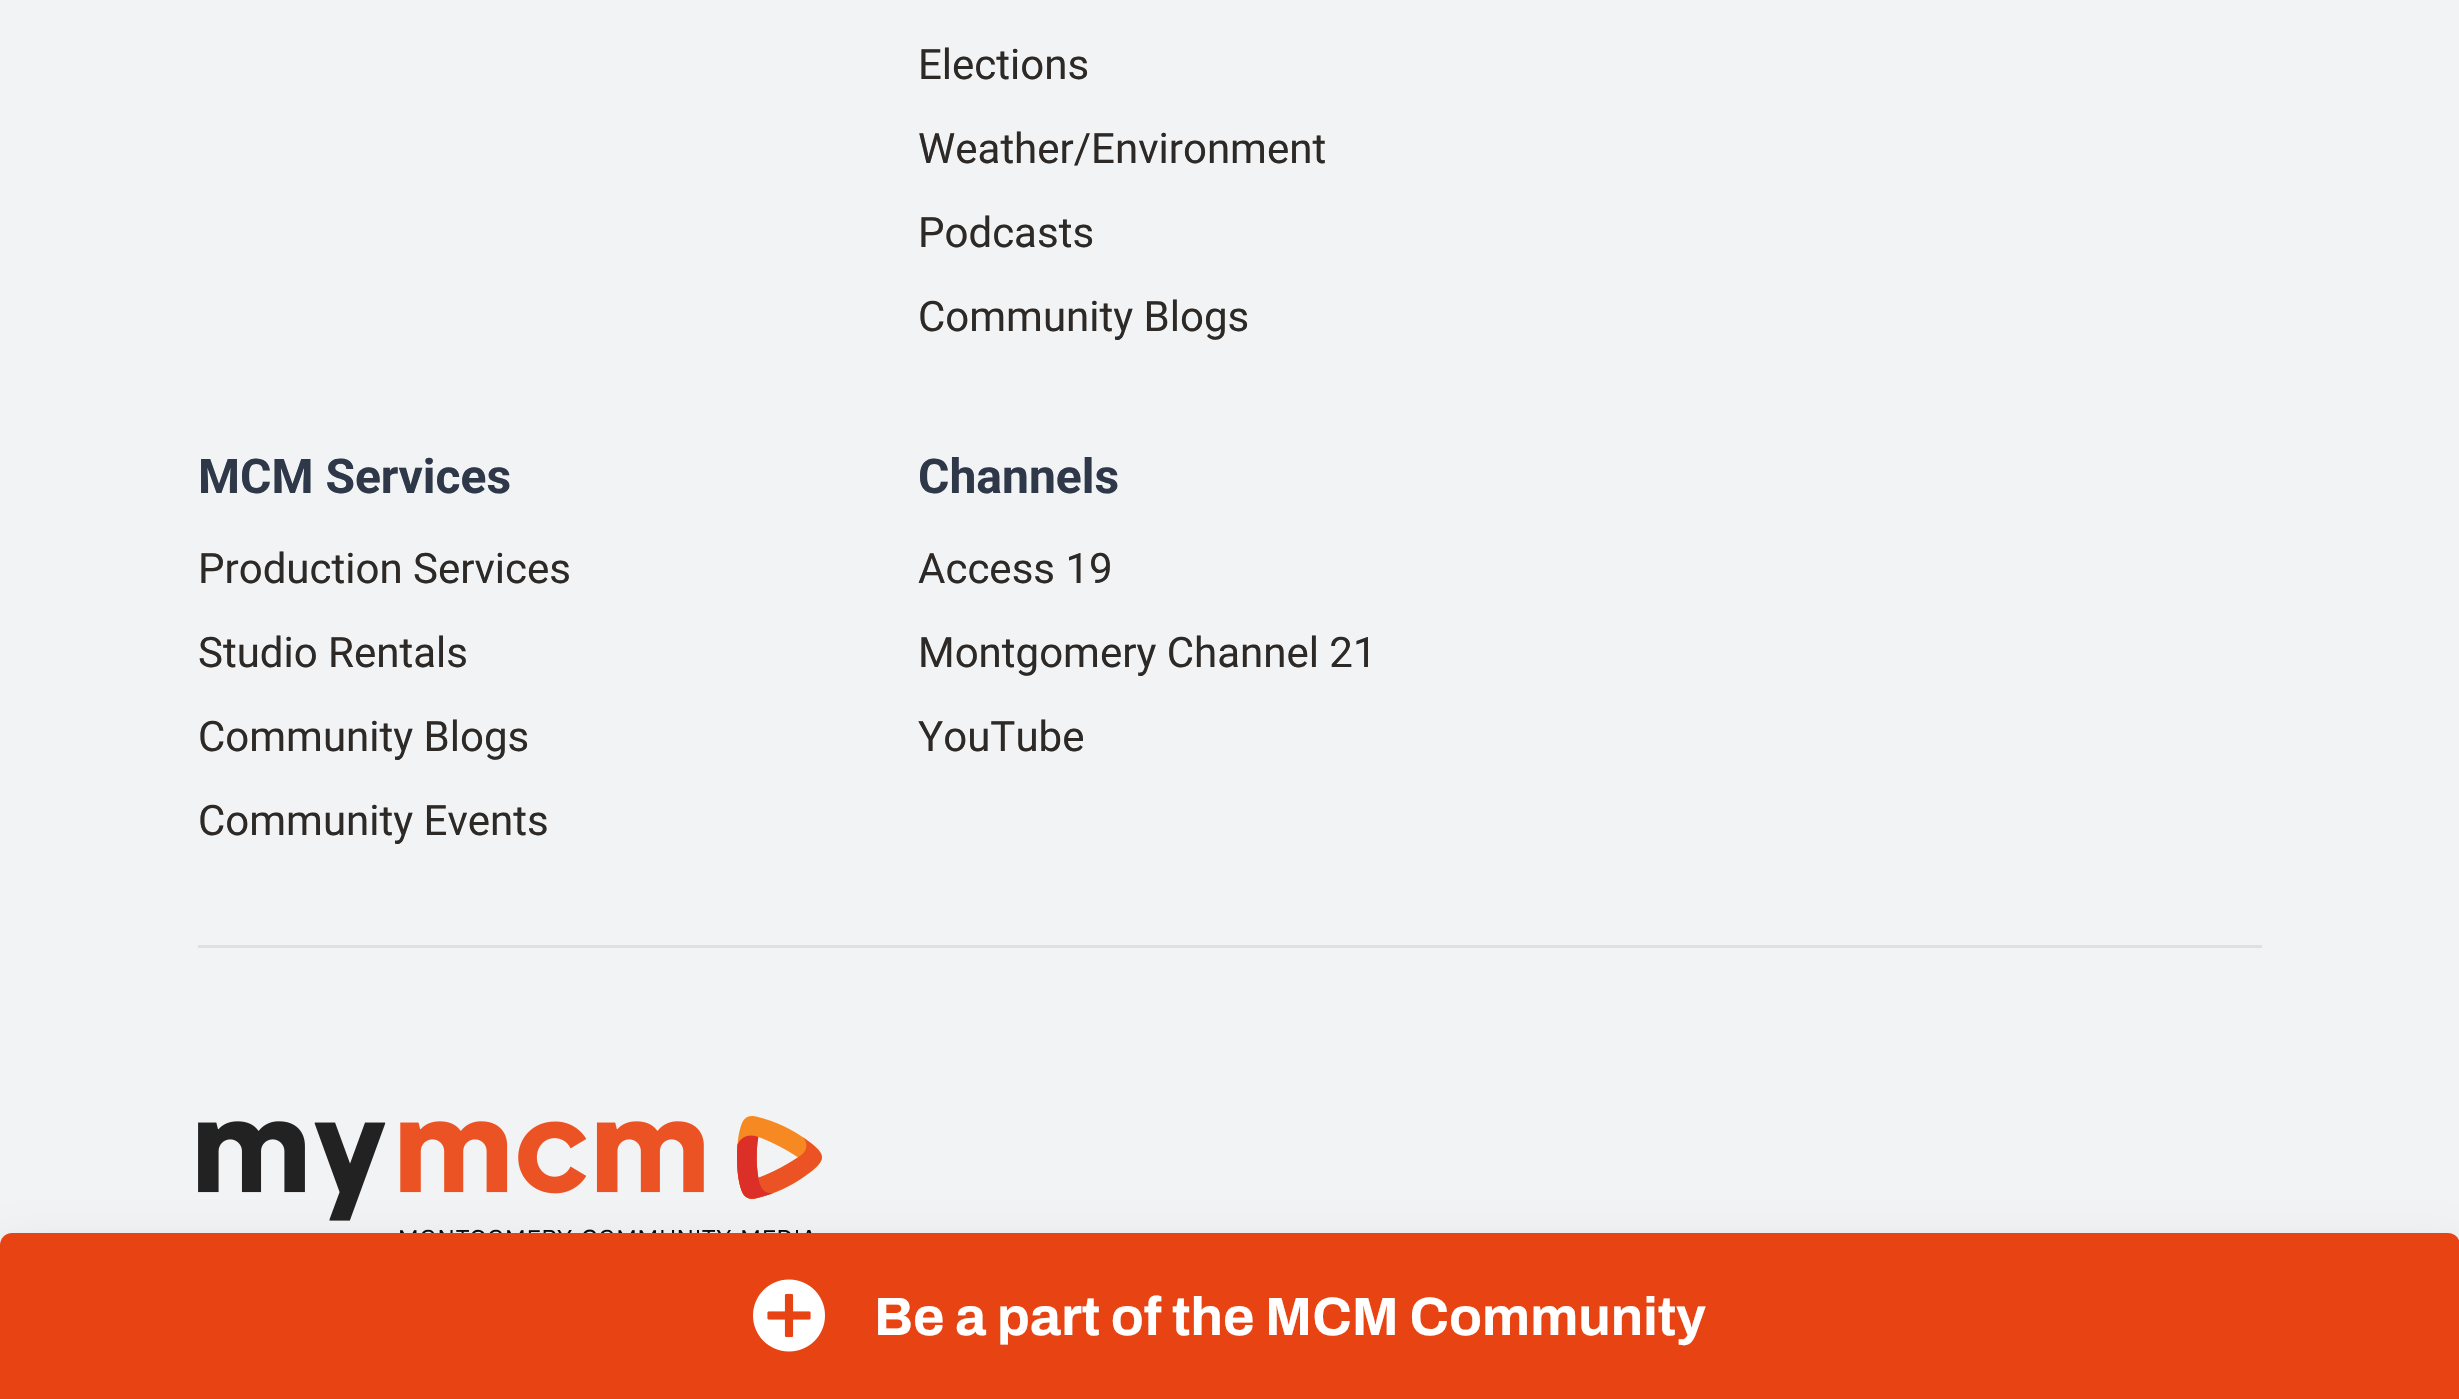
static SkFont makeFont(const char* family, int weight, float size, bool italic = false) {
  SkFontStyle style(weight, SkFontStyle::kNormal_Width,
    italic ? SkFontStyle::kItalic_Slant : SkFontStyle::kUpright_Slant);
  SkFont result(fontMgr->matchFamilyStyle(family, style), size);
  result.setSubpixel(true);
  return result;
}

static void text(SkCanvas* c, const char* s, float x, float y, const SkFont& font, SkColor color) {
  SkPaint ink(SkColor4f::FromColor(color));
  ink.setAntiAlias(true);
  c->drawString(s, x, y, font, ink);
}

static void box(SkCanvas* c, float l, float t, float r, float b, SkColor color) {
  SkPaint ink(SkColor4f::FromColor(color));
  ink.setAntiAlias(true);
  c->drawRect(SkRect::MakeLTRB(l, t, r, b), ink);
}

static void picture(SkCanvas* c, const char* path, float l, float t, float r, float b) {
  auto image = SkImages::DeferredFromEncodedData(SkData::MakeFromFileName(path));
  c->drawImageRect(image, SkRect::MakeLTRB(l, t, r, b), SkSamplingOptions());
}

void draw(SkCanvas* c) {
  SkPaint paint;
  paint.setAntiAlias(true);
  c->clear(0xfff2f3f4);
  box(c, 198, 945, 2262, 948, 0xffdee0e1);
  SkFont face1 = makeFont("Roboto", 400, 42);
  text(c, "Elections", 918, 79, face1, 0xff2d2926);
  text(c, "Weather/Environment", 918, 163, face1, 0xff2d2926);
  text(c, "Podcasts", 918, 247, face1, 0xff2d2926);
  text(c, "Community Blogs", 918, 331, face1, 0xff2d2926);
  SkFont face2 = makeFont("Roboto", 700, 48);
  text(c, "MCM Services", 198, 493, face2, 0xff2e3849);
  text(c, "Production Services", 198, 583, face1, 0xff2d2926);
  text(c, "Studio Rentals", 198, 667, face1, 0xff2d2926);
  text(c, "Community Blogs", 198, 751, face1, 0xff2d2926);
  text(c, "Community Events", 198, 835, face1, 0xff2d2926);
  text(c, "Channels", 918, 493, face2, 0xff2e3849);
  text(c, "Access 19", 918, 583, face1, 0xff2d2926);
  text(c, "Montgomery Channel 21", 918, 667, face1, 0xff2d2926);
  text(c, "YouTube", 918, 751, face1, 0xff2d2926);
  picture(c, "img_01.png", 198, 1116, 822, 1233);
  paint.setColor(0x26000000);
  paint.setMaskFilter(SkMaskFilter::MakeBlur(kNormal_SkBlurStyle, 24));
  c->drawRoundRect(SkRect::MakeLTRB(0, 1257, 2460, 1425), 12, 12, paint);
  paint.setMaskFilter(nullptr);
  paint.setColor(0xffe74313);
  c->drawPath(SkPathBuilder().moveTo(12, 1233).lineTo(2448, 1233).cubicTo(2454.5f, 1233, 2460, 1238.5f, 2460, 1245).lineTo(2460, 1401).lineTo(0, 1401).lineTo(0, 1245).cubicTo(0, 1238.5f, 5.5f, 1233, 12, 1233).close().detach(), paint);
  picture(c, "img_02.png", 753, 1279, 825, 1352);
  SkFont face3 = makeFont("Archivo", 700, 54);
  text(c, "Be a part of the MCM Community", 874, 1335, face3, 0xffffffff);
}
